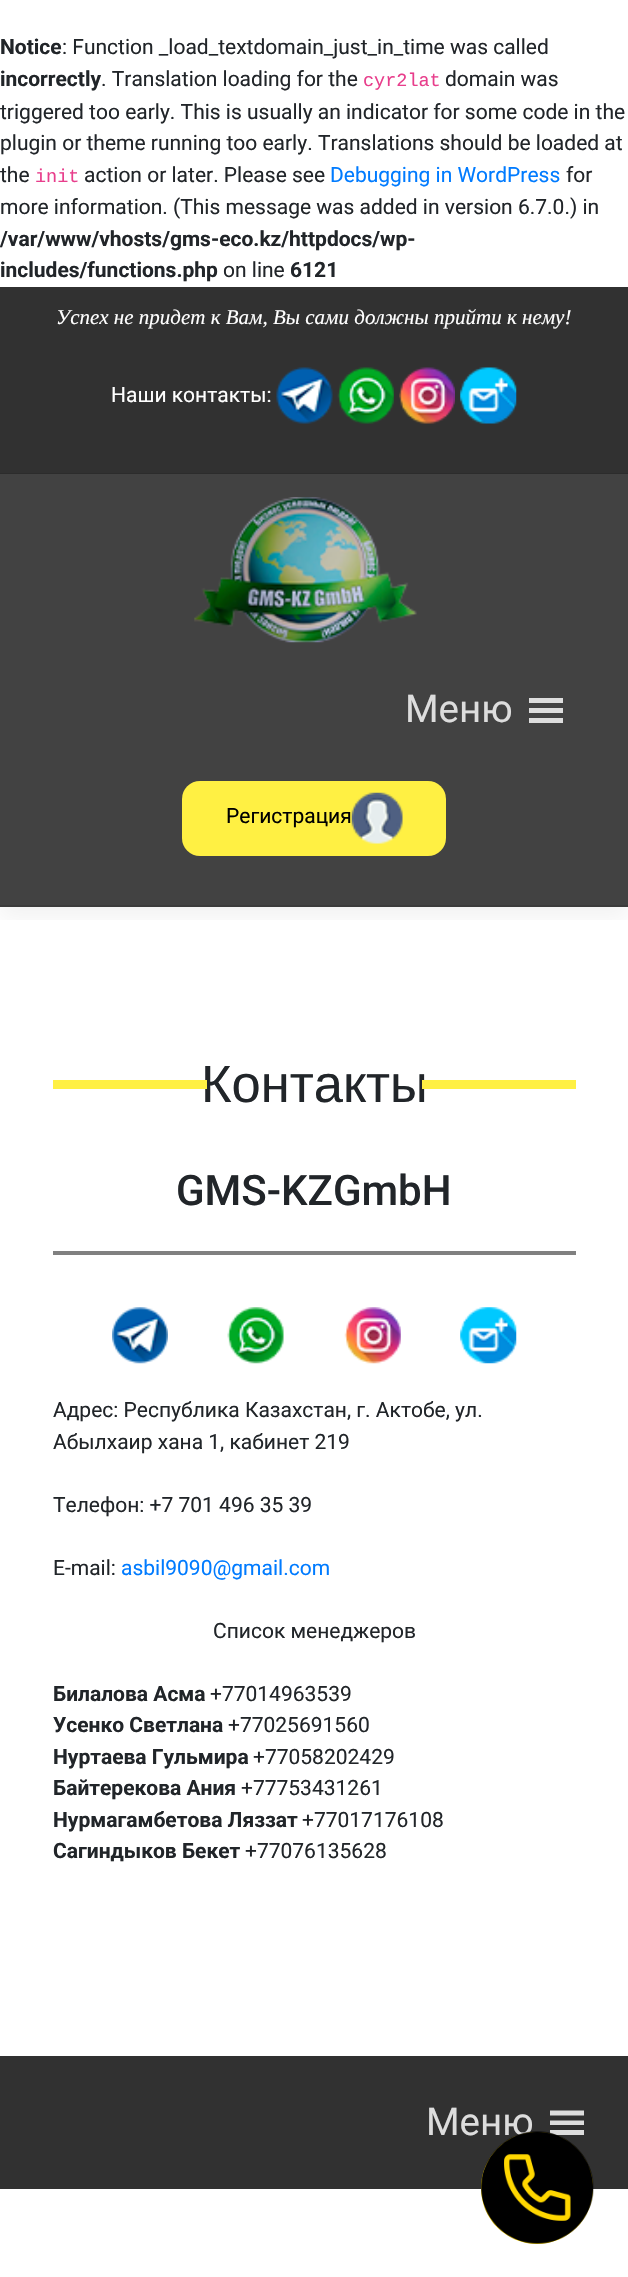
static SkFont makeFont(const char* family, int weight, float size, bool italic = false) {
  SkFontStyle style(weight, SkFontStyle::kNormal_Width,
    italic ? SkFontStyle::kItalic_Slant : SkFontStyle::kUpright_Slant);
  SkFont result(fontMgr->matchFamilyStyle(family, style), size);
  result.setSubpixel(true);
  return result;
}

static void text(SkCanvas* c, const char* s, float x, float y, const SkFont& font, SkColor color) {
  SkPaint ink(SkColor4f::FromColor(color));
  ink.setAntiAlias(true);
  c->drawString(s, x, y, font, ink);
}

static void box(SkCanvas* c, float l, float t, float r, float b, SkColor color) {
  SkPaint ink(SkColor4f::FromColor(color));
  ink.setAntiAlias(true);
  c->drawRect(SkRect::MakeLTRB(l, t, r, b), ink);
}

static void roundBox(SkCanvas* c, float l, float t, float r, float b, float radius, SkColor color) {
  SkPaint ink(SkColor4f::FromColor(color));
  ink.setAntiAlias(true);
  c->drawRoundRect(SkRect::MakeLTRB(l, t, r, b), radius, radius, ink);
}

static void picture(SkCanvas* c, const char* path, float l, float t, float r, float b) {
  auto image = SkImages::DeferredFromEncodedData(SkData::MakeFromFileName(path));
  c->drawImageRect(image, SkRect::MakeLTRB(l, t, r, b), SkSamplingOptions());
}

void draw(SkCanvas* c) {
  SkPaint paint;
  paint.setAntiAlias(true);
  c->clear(0xffffffff);
  SkFont face1 = makeFont("Roboto", 700, 21);
  text(c, "Notice", 0, 54, face1, 0xff212529);
  SkFont face2 = makeFont("Roboto", 400, 21);
  text(c, ": Function _load_textdomain_just_in_time was called", 62, 54, face2, 0xff212529);
  text(c, "incorrectly", 0, 86, face1, 0xff212529);
  text(c, ". Translation loading for the", 101, 86, face2, 0xff212529);
  SkFont face3 = makeFont("Liberation Mono", 400, 18.5f);
  text(c, "cyr2lat", 363, 86, face3, 0xffe83e8c);
  text(c, "domain was", 445, 86, face2, 0xff212529);
  text(c, "triggered too early. This is usually an indicator for some code in the", 0, 119, face2, 0xff212529);
  text(c, "plugin or theme running too early. Translations should be loaded at", 0, 150, face2, 0xff212529);
  text(c, "the", 0, 182, face2, 0xff212529);
  text(c, "init", 35, 182, face3, 0xffe83e8c);
  text(c, "action or later. Please see", 84, 182, face2, 0xff212529);
  text(c, "Debugging in WordPress", 330, 182, face2, 0xff007bff);
  text(c, "for", 566, 182, face2, 0xff212529);
  text(c, "more information. (This message was added in version 6.7.0.) in", 0, 214, face2, 0xff212529);
  text(c, "/var/www/vhosts/gms-eco.kz/httpdocs/wp-", 0, 246, face1, 0xff212529);
  text(c, "includes/functions.php", 0, 277, face1, 0xff212529);
  text(c, "on line", 223, 277, face2, 0xff212529);
  text(c, "6121", 290, 277, face1, 0xff212529);
  box(c, 0, 287, 628, 474, 0xff313131);
  box(c, 0, 473, 628, 474, 0x1a000000);
  SkFont face4 = makeFont("Liberation Serif", 400, 21, true);
  text(c, "Успех не придет к Вам, Вы сами должны прийти к нему!", 56, 324, face4, 0xffffffff);
  text(c, "Наши контакты:", 111, 402, face2, 0xffffffff);
  picture(c, "img_01.png", 276, 367, 333, 424);
  picture(c, "img_02.png", 337, 367, 394, 424);
  picture(c, "img_03.png", 399, 367, 455, 424);
  picture(c, "img_04.png", 460, 367, 517, 424);
  c->save();
  c->clipRect(SkRect::MakeLTRB(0, 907, 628, 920));
  paint.setColor(0x0d000000);
  paint.setMaskFilter(SkMaskFilter::MakeBlur(kNormal_SkBlurStyle, 10.5f));
  c->drawRect(SkRect::MakeLTRB(0, 485, 628, 917), paint);
  paint.setMaskFilter(nullptr);
  c->restore();
  box(c, 0, 474, 628, 905, 0xbd000000);
  box(c, 0, 905, 628, 907, 0xff3b3b3b);
  picture(c, "img_05.png", 194, 497, 417, 643);
  SkFont face5 = makeFont("Roboto", 400, 38.5f);
  text(c, "Меню", 405, 722, face5, 0xffdddddd);
  paint.setColor(0xffdddddd);
  c->drawPath(SkPathBuilder().moveTo(529, 723).lineTo(563, 723).lineTo(563, 718).lineTo(529, 718).close().moveTo(529, 698).lineTo(529, 703).lineTo(563, 703).lineTo(563, 698).close().moveTo(529, 713).lineTo(563, 713).lineTo(563, 708).lineTo(529, 708).close().detach(), paint);
  roundBox(c, 182, 781, 446, 856, 18, 0xfffff043);
  text(c, "Регистрация", 226, 823, face2, 0xff000000);
  picture(c, "img_06.png", 351, 792, 403, 844);
  SkFont face6 = makeFont("Liberation Sans", 400, 52.5f);
  text(c, "Контакты", 201, 1102, face6, 0xff212529);
  box(c, 53, 1080, 207, 1089, 0xfffff043);
  box(c, 422, 1080, 576, 1089, 0xfffff043);
  SkFont face7 = makeFont("Roboto", 500, 42);
  text(c, "GMS-KZGmbH", 176, 1205, face7, 0xff212529);
  box(c, 53, 1251, 576, 1255, 0xff808080);
  picture(c, "img_07.png", 112, 1307, 168, 1364);
  picture(c, "img_08.png", 227, 1307, 284, 1364);
  picture(c, "img_09.png", 344, 1307, 401, 1364);
  picture(c, "img_10.png", 460, 1307, 517, 1364);
  text(c, "Адрес: Республика Казахстан, г. Актобе, ул.", 53, 1417, face2, 0xff212529);
  text(c, "Абылхаир хана 1, кабинет 219", 53, 1449, face2, 0xff212529);
  text(c, "Телефон: +7 701 496 35 39", 53, 1512, face2, 0xff212529);
  text(c, "E-mail:", 53, 1575, face2, 0xff212529);
  text(c, "asbil9090@gmail.com", 121, 1575, face2, 0xff007bff);
  text(c, "Список менеджеров", 213, 1638, face2, 0xff212529);
  text(c, "Билалова Асма", 53, 1701, face1, 0xff212529);
  text(c, "+77014963539", 210, 1701, face2, 0xff212529);
  text(c, "Усенко Светлана", 53, 1732, face1, 0xff212529);
  text(c, "+77025691560", 228, 1732, face2, 0xff212529);
  text(c, "Нуртаева Гульмира", 53, 1764, face1, 0xff212529);
  text(c, "+77058202429", 253, 1764, face2, 0xff212529);
  text(c, "Байтерекова Ания", 53, 1795, face1, 0xff212529);
  text(c, "+77753431261", 241, 1795, face2, 0xff212529);
  text(c, "Нурмагамбетова Ляззат", 53, 1827, face1, 0xff212529);
  text(c, "+77017176108", 302, 1827, face2, 0xff212529);
  text(c, "Сагиндыков Бекет", 53, 1858, face1, 0xff212529);
  text(c, "+77076135628", 245, 1858, face2, 0xff212529);
  box(c, 0, 2056, 628, 2189, 0xff313131);
  text(c, "Меню", 426, 2135, face5, 0xffdddddd);
  c->drawPath(SkPathBuilder().moveTo(550, 2135).lineTo(584, 2135).lineTo(584, 2130).lineTo(550, 2130).close().moveTo(550, 2110.5f).lineTo(550, 2115.5f).lineTo(584, 2115.5f).lineTo(584, 2110.5f).close().moveTo(550, 2125).lineTo(584, 2125).lineTo(584, 2120.5f).lineTo(550, 2120.5f).close().detach(), paint);
  paint.setColor(0xffffd700);
  c->drawCircle(537, 2188, 56, paint);
  picture(c, "img_11.png", 481, 2131, 594, 2244);
}
